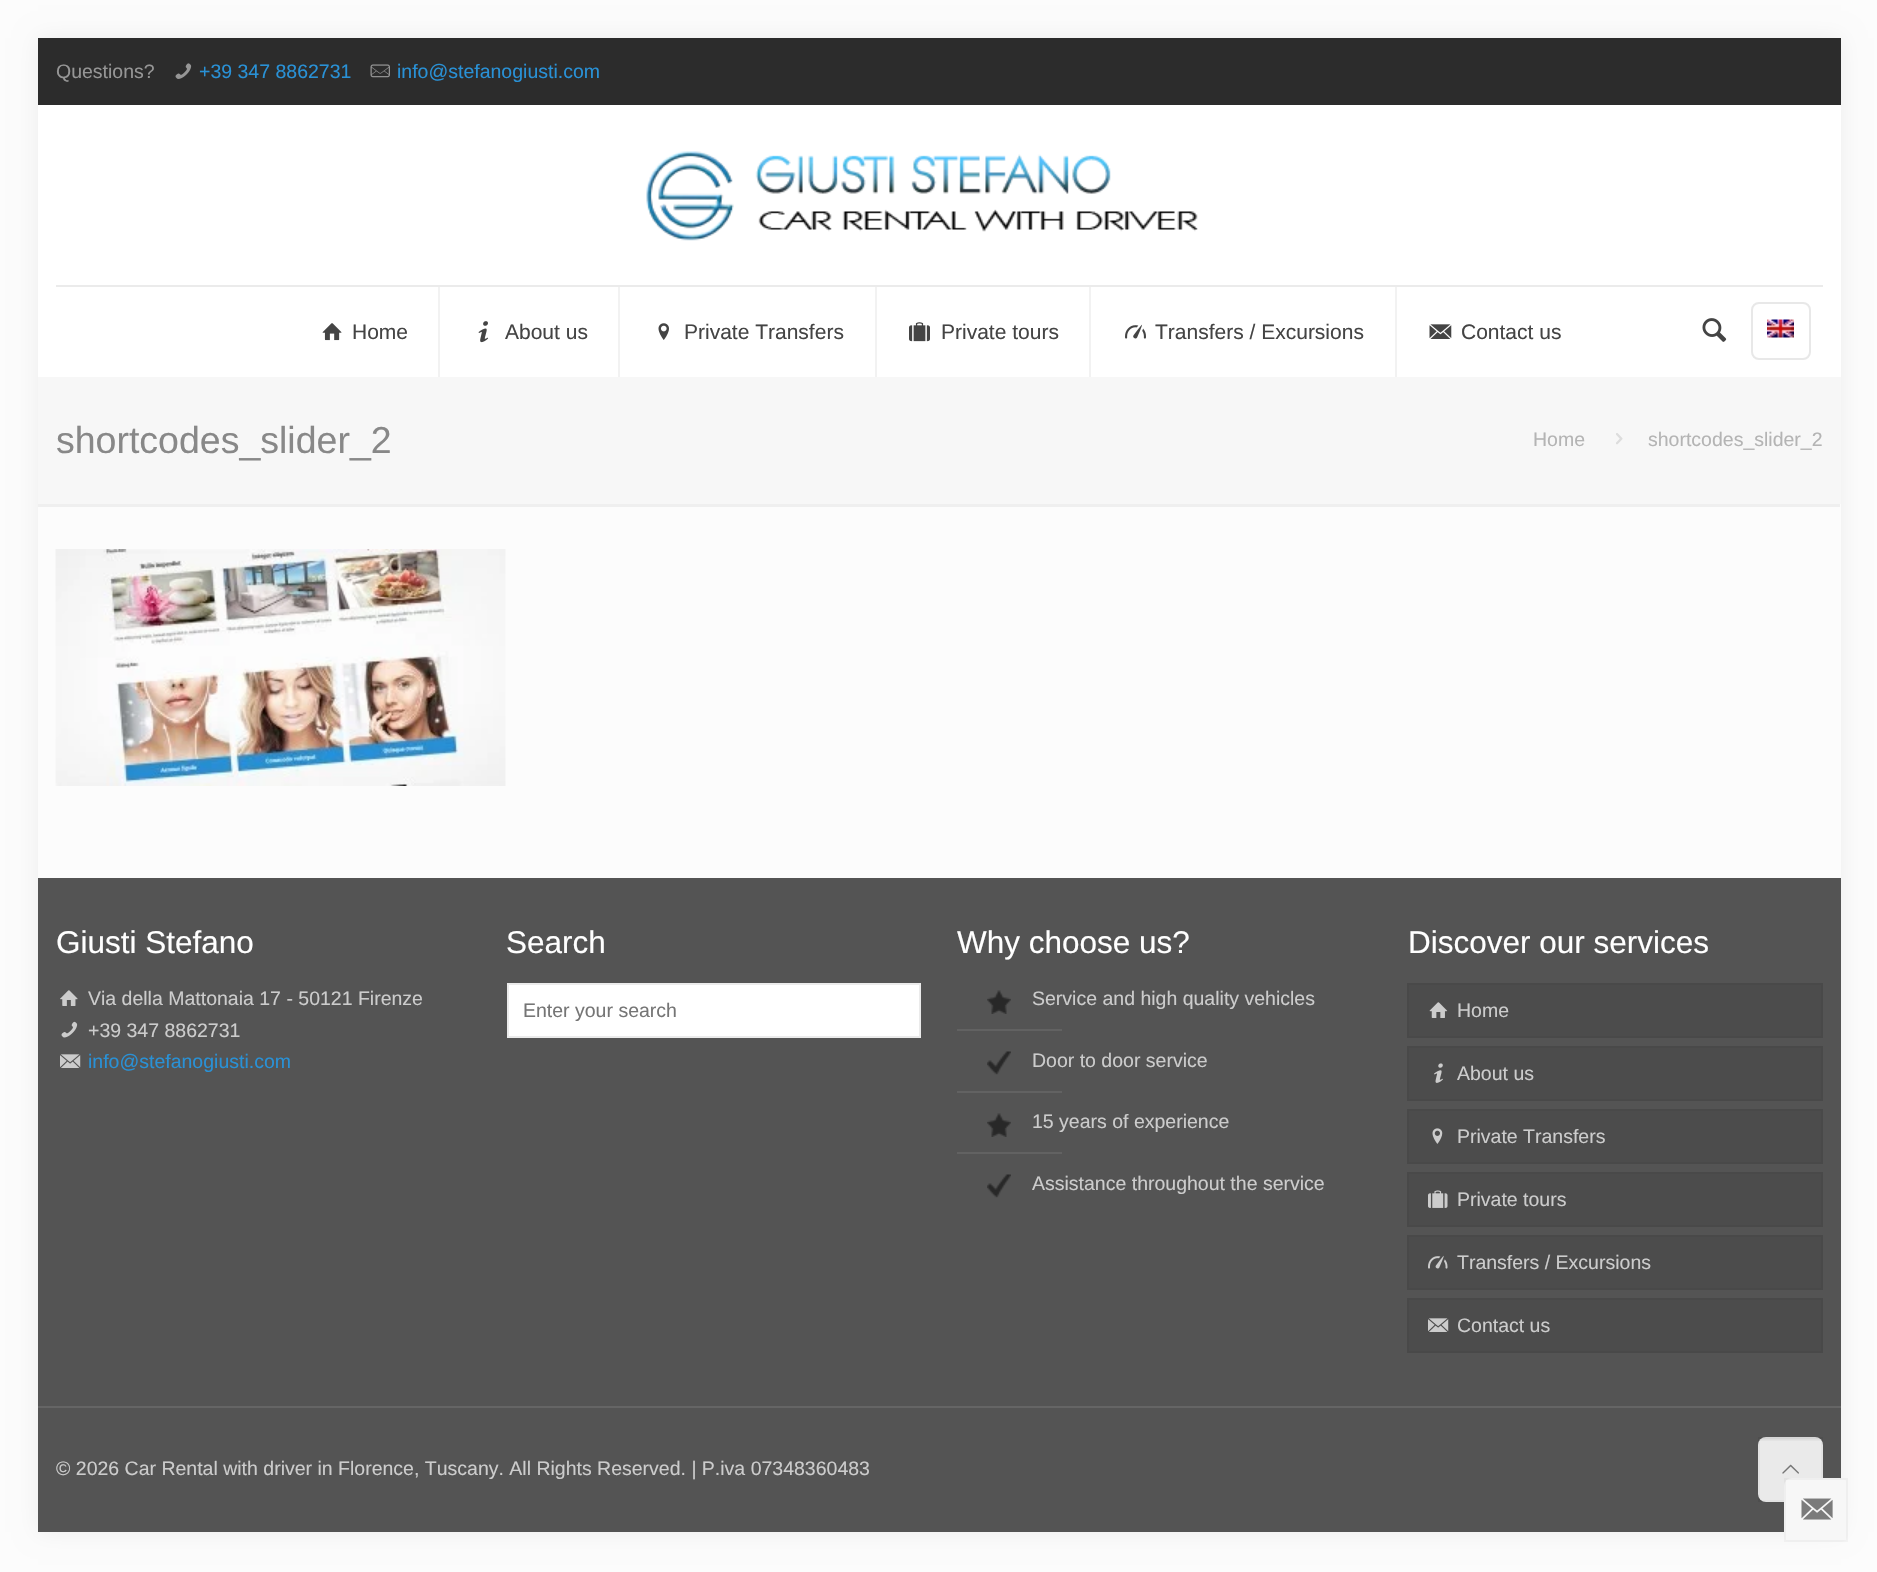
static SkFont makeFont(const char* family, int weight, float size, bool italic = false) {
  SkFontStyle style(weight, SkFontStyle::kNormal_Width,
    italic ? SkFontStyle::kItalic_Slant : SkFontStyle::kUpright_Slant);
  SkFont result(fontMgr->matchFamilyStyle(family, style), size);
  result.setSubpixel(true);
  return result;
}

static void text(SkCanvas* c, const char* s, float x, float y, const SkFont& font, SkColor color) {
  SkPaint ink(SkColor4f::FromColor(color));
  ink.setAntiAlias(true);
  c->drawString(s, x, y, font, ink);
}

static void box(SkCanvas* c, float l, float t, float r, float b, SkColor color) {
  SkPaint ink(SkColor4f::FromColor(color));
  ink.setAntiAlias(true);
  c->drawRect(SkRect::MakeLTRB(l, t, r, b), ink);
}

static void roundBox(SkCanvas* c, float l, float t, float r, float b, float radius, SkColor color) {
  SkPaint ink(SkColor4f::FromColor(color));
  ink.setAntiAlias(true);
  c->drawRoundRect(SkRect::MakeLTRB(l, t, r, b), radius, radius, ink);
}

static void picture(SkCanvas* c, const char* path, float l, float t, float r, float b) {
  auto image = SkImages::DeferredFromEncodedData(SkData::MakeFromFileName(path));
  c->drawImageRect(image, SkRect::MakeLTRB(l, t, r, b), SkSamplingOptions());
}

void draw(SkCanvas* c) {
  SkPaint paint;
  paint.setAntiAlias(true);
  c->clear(0xfffcfcfc);
  paint.setColor(0x0f000000);
  paint.setMaskFilter(SkMaskFilter::MakeBlur(kNormal_SkBlurStyle, 11));
  c->drawRect(SkRect::MakeLTRB(38, 38, 1841, 1532), paint);
  paint.setMaskFilter(nullptr);
  box(c, 38, 504, 1841, 878, 0xfffcfcfc);
  box(c, 38, 38, 1841, 105, 0xff2c2c2c);
  SkFont face1 = makeFont("Liberation Sans", 400, 19.5f);
  text(c, "Questions?", 56, 78, face1, 0xff969696);
  picture(c, "img_01.png", 175, 63, 192, 79);
  text(c, "+39 347 8862731", 199, 78, face1, 0xff2991d6);
  picture(c, "img_02.png", 370, 64, 390, 78);
  text(c, "info@stefanogiusti.com", 397, 78, face1, 0xff2991d6);
  box(c, 38, 105, 1841, 377, 0xffffffff);
  box(c, 56, 285, 1823, 287, 0xffebebeb);
  picture(c, "img_03.png", 646, 151, 1198, 241);
  box(c, 438, 287, 440, 377, 0xfff2f2f2);
  picture(c, "img_04.png", 322, 323, 342, 341);
  SkFont face2 = makeFont("Liberation Sans", 400, 21);
  text(c, "Home", 352, 339, face2, 0xff444444);
  box(c, 618, 287, 620, 377, 0xfff2f2f2);
  picture(c, "img_05.png", 478, 321, 489, 343);
  text(c, "About us", 505, 339, face2, 0xff444444);
  box(c, 875, 287, 877, 377, 0xfff2f2f2);
  picture(c, "img_06.png", 658, 323, 669, 340);
  text(c, "Private Transfers", 684, 339, face2, 0xff444444);
  box(c, 1089, 287, 1091, 377, 0xfff2f2f2);
  picture(c, "img_07.png", 909, 322, 930, 342);
  text(c, "Private tours", 941, 339, face2, 0xff444444);
  box(c, 1395, 287, 1397, 377, 0xfff2f2f2);
  picture(c, "img_08.png", 1125, 324, 1146, 339);
  text(c, "Transfers / Excursions", 1155, 339, face2, 0xff444444);
  picture(c, "img_09.png", 1429, 324, 1452, 339);
  text(c, "Contact us", 1461, 339, face2, 0xff444444);
  picture(c, "img_10.png", 1702, 318, 1727, 342);
  paint.setStyle(SkPaint::kStroke_Style);
  paint.setStrokeWidth(2);
  paint.setColor(0xffe8e8e8);
  c->drawRoundRect(SkRect::MakeLTRB(1752, 303, 1810, 359), 7, 7, paint);
  picture(c, "img_11.png", 1767, 319, 1794, 338);
  box(c, 38, 377, 1841, 504, 0xfff7f7f7);
  SkFont face3 = makeFont("Liberation Sans", 400, 37.5f);
  text(c, "shortcodes_slider_2", 56, 453, face3, 0xff888888);
  text(c, "Home", 1533, 446, face1, 0xffb4b4b4);
  picture(c, "img_12.png", 1616, 433, 1623, 445);
  text(c, "shortcodes_slider_2", 1648, 446, face1, 0xffb4b4b4);
  box(c, 38, 504, 1840, 507, 0xffefefef);
  picture(c, "img_13.png", 55, 549, 506, 786);
  box(c, 38, 878, 1841, 1532, 0xff545454);
  SkFont face4 = makeFont("Liberation Sans", 400, 31.5f);
  text(c, "Giusti Stefano", 56, 953, face4, 0xffffffff);
  picture(c, "img_14.png", 60, 990, 78, 1006);
  text(c, "Via della Mattonaia 17 - 50121 Firenze", 88, 1005, face1, 0xffcccccc);
  picture(c, "img_15.png", 61, 1021, 78, 1038);
  text(c, "+39 347 8862731", 88, 1037, face1, 0xffcccccc);
  picture(c, "img_16.png", 60, 1054, 81, 1068);
  text(c, "info@stefanogiusti.com", 88, 1068, face1, 0xff2991d6);
  text(c, "Search", 506, 953, face4, 0xffffffff);
  paint.setStyle(SkPaint::kFill_Style);
  paint.setColor(0xffffffff);
  c->drawRect(SkRect::MakeLTRB(508, 984, 920, 1037), paint);
  paint.setStyle(SkPaint::kStroke_Style);
  paint.setColor(0xffebebeb);
  c->drawRect(SkRect::MakeLTRB(508, 984, 920, 1037), paint);
  text(c, "Enter your search", 523, 1017, face1, 0xff757575);
  text(c, "Why choose us?", 957, 953, face4, 0xffffffff);
  picture(c, "img_17.png", 987, 990, 1011, 1014);
  text(c, "Service and high quality vehicles", 1032, 1005, face1, 0xffcccccc);
  box(c, 957, 1029, 1062, 1031, 0xff626262);
  picture(c, "img_18.png", 987, 1051, 1011, 1075);
  text(c, "Door to door service", 1032, 1067, face1, 0xffcccccc);
  box(c, 957, 1091, 1062, 1093, 0xff626262);
  picture(c, "img_17.png", 987, 1113, 1011, 1137);
  text(c, "15 years of experience", 1032, 1128, face1, 0xffcccccc);
  box(c, 957, 1152, 1062, 1154, 0xff626262);
  picture(c, "img_18.png", 987, 1174, 1011, 1198);
  text(c, "Assistance throughout the service", 1032, 1190, face1, 0xffcccccc);
  text(c, "Discover our services", 1408, 953, face4, 0xffffffff);
  paint.setStyle(SkPaint::kFill_Style);
  paint.setColor(0xff4c4c4c);
  c->drawRect(SkRect::MakeLTRB(1408, 984, 1822, 1037), paint);
  paint.setStyle(SkPaint::kStroke_Style);
  paint.setColor(0xff494949);
  c->drawRect(SkRect::MakeLTRB(1408, 984, 1822, 1037), paint);
  picture(c, "img_19.png", 1429, 1002, 1448, 1018);
  text(c, "Home", 1457, 1017, face1, 0xffcccccc);
  paint.setStyle(SkPaint::kFill_Style);
  paint.setColor(0xff4c4c4c);
  c->drawRect(SkRect::MakeLTRB(1408, 1047, 1822, 1100), paint);
  paint.setStyle(SkPaint::kStroke_Style);
  paint.setColor(0xff494949);
  c->drawRect(SkRect::MakeLTRB(1408, 1047, 1822, 1100), paint);
  picture(c, "img_20.png", 1434, 1063, 1443, 1083);
  text(c, "About us", 1457, 1080, face1, 0xffcccccc);
  paint.setStyle(SkPaint::kFill_Style);
  paint.setColor(0xff4c4c4c);
  c->drawRect(SkRect::MakeLTRB(1408, 1110, 1822, 1163), paint);
  paint.setStyle(SkPaint::kStroke_Style);
  paint.setColor(0xff494949);
  c->drawRect(SkRect::MakeLTRB(1408, 1110, 1822, 1163), paint);
  picture(c, "img_21.png", 1432, 1128, 1443, 1144);
  text(c, "Private Transfers", 1457, 1143, face1, 0xffcccccc);
  paint.setStyle(SkPaint::kFill_Style);
  paint.setColor(0xff4c4c4c);
  c->drawRect(SkRect::MakeLTRB(1408, 1173, 1822, 1226), paint);
  paint.setStyle(SkPaint::kStroke_Style);
  paint.setColor(0xff494949);
  c->drawRect(SkRect::MakeLTRB(1408, 1173, 1822, 1226), paint);
  picture(c, "img_22.png", 1428, 1190, 1448, 1208);
  text(c, "Private tours", 1457, 1206, face1, 0xffcccccc);
  paint.setStyle(SkPaint::kFill_Style);
  paint.setColor(0xff4c4c4c);
  c->drawRect(SkRect::MakeLTRB(1408, 1236, 1822, 1289), paint);
  paint.setStyle(SkPaint::kStroke_Style);
  paint.setColor(0xff494949);
  c->drawRect(SkRect::MakeLTRB(1408, 1236, 1822, 1289), paint);
  picture(c, "img_23.png", 1428, 1255, 1448, 1269);
  text(c, "Transfers / Excursions", 1457, 1269, face1, 0xffcccccc);
  paint.setStyle(SkPaint::kFill_Style);
  paint.setColor(0xff4c4c4c);
  c->drawRect(SkRect::MakeLTRB(1408, 1299, 1822, 1352), paint);
  paint.setStyle(SkPaint::kStroke_Style);
  paint.setColor(0xff494949);
  c->drawRect(SkRect::MakeLTRB(1408, 1299, 1822, 1352), paint);
  picture(c, "img_24.png", 1428, 1318, 1449, 1332);
  text(c, "Contact us", 1457, 1332, face1, 0xffcccccc);
  box(c, 38, 1406, 1841, 1408, 0xff656565);
  text(c, "© 2026 Car Rental with driver in Florence, Tuscany. All Rights Reserved. | P.iva 07348360483", 56, 1475, face1, 0xffcccccc);
  roundBox(c, 1758, 1437, 1823, 1502, 8, 0xfff7f7f7);
  picture(c, "img_25.png", 1760, 1437, 1821, 1441);
  paint.setColor(0x08000000);
  c->drawRect(SkRect::MakeLTRB(1759, 1438, 1822, 1501), paint);
  box(c, 1758, 1437, 1823, 1502, 0x0d000000);
  picture(c, "img_26.png", 1782, 1464, 1799, 1474);
  roundBox(c, 1784, 1478, 1848, 1542, 8, 0xfff7f7f7);
  c->drawRect(SkRect::MakeLTRB(1785, 1479, 1847, 1541), paint);
  picture(c, "img_27.png", 1801, 1498, 1833, 1520);
}
